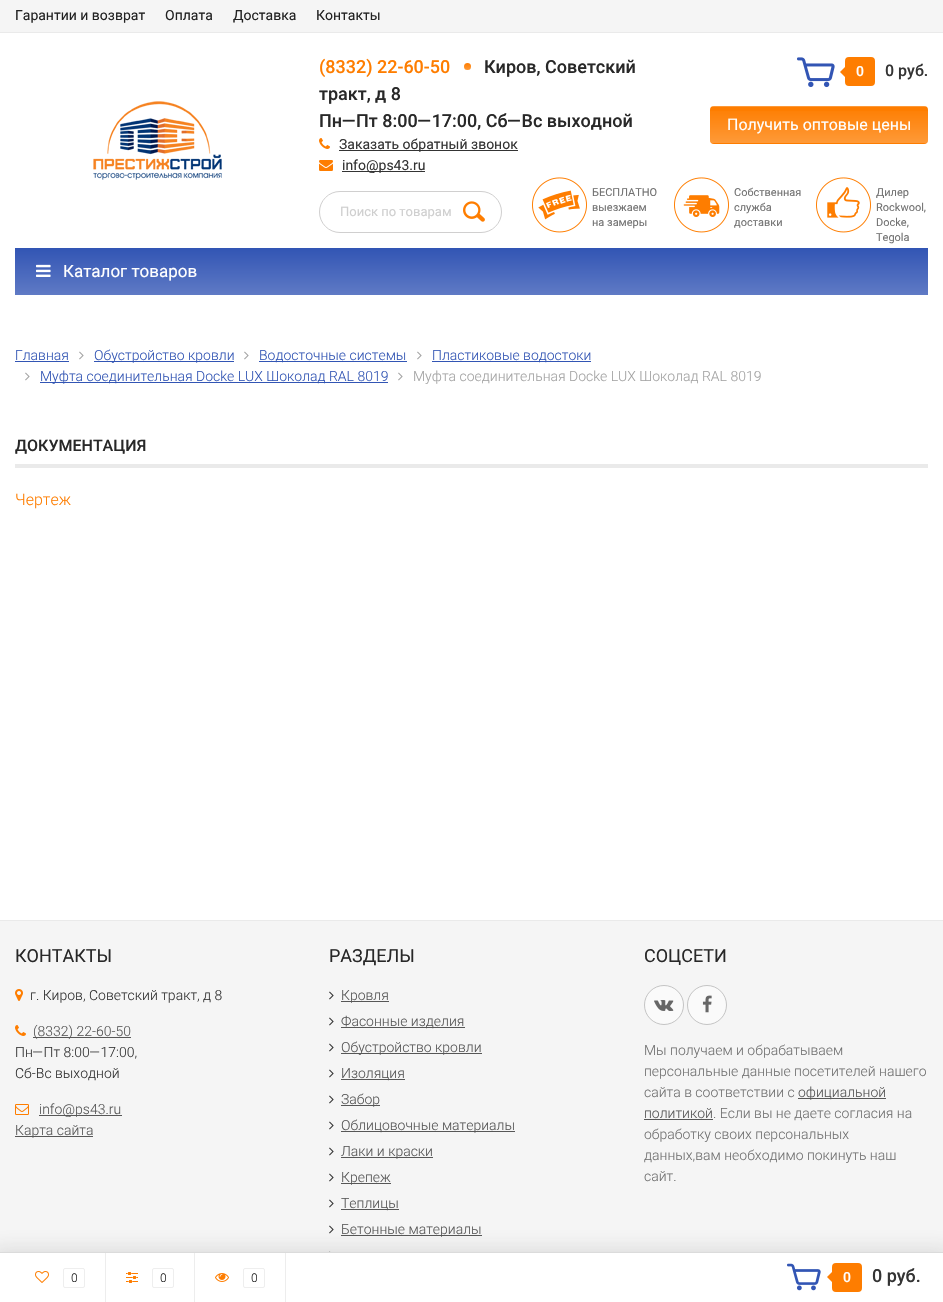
static SkFont makeFont(const char* family, int weight, float size, bool italic = false) {
  SkFontStyle style(weight, SkFontStyle::kNormal_Width,
    italic ? SkFontStyle::kItalic_Slant : SkFontStyle::kUpright_Slant);
  SkFont result(fontMgr->matchFamilyStyle(family, style), size);
  result.setSubpixel(true);
  return result;
}

static void text(SkCanvas* c, const char* s, float x, float y, const SkFont& font, SkColor color) {
  SkPaint ink(SkColor4f::FromColor(color));
  ink.setAntiAlias(true);
  c->drawString(s, x, y, font, ink);
}

static void box(SkCanvas* c, float l, float t, float r, float b, SkColor color) {
  SkPaint ink(SkColor4f::FromColor(color));
  ink.setAntiAlias(true);
  c->drawRect(SkRect::MakeLTRB(l, t, r, b), ink);
}

static void roundBox(SkCanvas* c, float l, float t, float r, float b, float radius, SkColor color) {
  SkPaint ink(SkColor4f::FromColor(color));
  ink.setAntiAlias(true);
  c->drawRoundRect(SkRect::MakeLTRB(l, t, r, b), radius, radius, ink);
}

static void picture(SkCanvas* c, const char* path, float l, float t, float r, float b) {
  auto image = SkImages::DeferredFromEncodedData(SkData::MakeFromFileName(path));
  c->drawImageRect(image, SkRect::MakeLTRB(l, t, r, b), SkSamplingOptions());
}

void draw(SkCanvas* c) {
  SkPaint paint;
  paint.setAntiAlias(true);
  c->clear(0xffffffff);
  box(c, 0, 0, 943, 32, 0xfff5f5f5);
  box(c, 0, 32, 943, 33, 0xffeaeaea);
  SkFont face1 = makeFont("Roboto", 400, 14);
  text(c, "Гарантии и возврат", 15, 20, face1, 0xff222222);
  text(c, "Оплата", 165, 20, face1, 0xff222222);
  text(c, "Доставка", 233, 20, face1, 0xff222222);
  text(c, "Контакты", 316, 20, face1, 0xff222222);
  picture(c, "img_01.png", 93, 101, 222, 180);
  SkFont face2 = makeFont("Roboto", 500, 18);
  text(c, "(8332) 22-60-50", 319, 73, face2, 0xfffe7d00);
  paint.setColor(0xfffe7d00);
  c->drawCircle(467.5f, 66.5f, 3.5f, paint);
  {
    const SkColor colors[] = {0x00ffffff, 0x38ffffff};
    const float stops[] = {0, 1};
    const SkPoint ends[] = {{468, 63}, {468, 70}};
    paint.setShader(SkGradientShader::MakeLinear(ends, colors, stops, 2, SkTileMode::kClamp));
    paint.setAlpha(255);
  }
  c->drawCircle(467.5f, 66.5f, 3.5f, paint);
  text(c, "Киров, Советский", 484, 73, face2, 0xff282828);
  text(c, "тракт, д 8", 319, 100, face2, 0xff282828);
  text(c, "Пн—Пт 8:00—17:00, Сб—Вс выходной", 319, 127, face2, 0xff282828);
  picture(c, "img_02.png", 319, 138, 330, 149);
  box(c, 339, 150, 518, 151, 0xff343434);
  text(c, "Заказать обратный звонок", 339, 149, face1, 0xff343434);
  picture(c, "img_03.png", 319, 160, 333, 171);
  box(c, 342, 171, 425, 172, 0xff343434);
  text(c, "info@ps43.ru", 342, 170, face1, 0xff343434);
  picture(c, "img_04.png", 797, 57, 835, 88);
  paint.setShader(nullptr);
  paint.setColor(0xfffe7d00);
  c->drawRoundRect(SkRect::MakeLTRB(847, 59, 873, 84), 2, 2, paint);
  paint.setStyle(SkPaint::kStroke_Style);
  paint.setStrokeWidth(4);
  c->drawRoundRect(SkRect::MakeLTRB(847, 59, 873, 84), 2, 2, paint);
  paint.setStyle(SkPaint::kFill_Style);
  c->drawPath(SkPathBuilder().moveTo(849, 63).lineTo(849, 81).lineTo(840, 72).close().detach(), paint);
  SkFont face3 = makeFont("Roboto", 500, 14);
  text(c, "0", 856, 76, face3, 0xffffffff);
  SkFont face4 = makeFont("Roboto", 500, 16);
  text(c, "0 руб.", 885, 76, face4, 0xff343434);
  roundBox(c, 710, 106, 928, 144, 4, 0xfffe7d00);
  c->save();
  c->clipPath(SkPathBuilder().moveTo(714, 106).lineTo(924, 106).cubicTo(926, 106, 928, 108, 928, 110).lineTo(928, 140).cubicTo(928, 142, 926, 144, 924, 144).lineTo(714, 144).cubicTo(712, 144, 710, 142, 710, 140).lineTo(710, 110).cubicTo(710, 108, 712, 106, 714, 106).close().detach(), true);
  {
    const SkColor colors[] = {0x00ffffff, 0x38ffffff};
    const float stops[] = {0, 1};
    const SkPoint ends[] = {{819, 71}, {819, 107}};
    paint.setShader(SkGradientShader::MakeLinear(ends, colors, stops, 2, SkTileMode::kClamp));
    paint.setAlpha(255);
  }
  c->drawRect(SkRect::MakeLTRB(710, 106, 928, 107), paint);
  {
    const SkColor colors[] = {0x00ffffff, 0x38ffffff};
    const float stops[] = {0, 1};
    const SkPoint ends[] = {{819, 107}, {819, 143}};
    paint.setShader(SkGradientShader::MakeLinear(ends, colors, stops, 2, SkTileMode::kClamp));
    paint.setAlpha(255);
  }
  c->drawRect(SkRect::MakeLTRB(710, 111, 928, 143), paint);
  c->restore();
  SkFont face5 = makeFont("Roboto", 400, 16);
  text(c, "Получить оптовые цены", 727, 130, face5, 0xffffffff);
  paint.setStyle(SkPaint::kStroke_Style);
  paint.setStrokeWidth(1);
  paint.setShader(nullptr);
  paint.setColor(0xffd0cfcf);
  c->drawRoundRect(SkRect::MakeLTRB(319.5f, 191.5f, 501.5f, 232.5f), 20.5f, 20.5f, paint);
  SkFont face6 = makeFont("Roboto", 400, 13);
  text(c, "Поиск по товарам", 340, 216, face6, 0xffcfcfcf);
  picture(c, "img_05.png", 463, 201, 485, 222);
  picture(c, "img_06.png", 532, 177, 587, 233);
  SkFont face7 = makeFont("Roboto", 400, 11);
  text(c, "БЕСПЛАТНО", 592, 196, face7, 0xff717171);
  text(c, "выезжаем", 592, 211, face7, 0xff717171);
  text(c, "на замеры", 592, 226, face7, 0xff717171);
  picture(c, "img_07.png", 674, 177, 729, 233);
  text(c, "Собственная", 734, 196, face7, 0xff717171);
  text(c, "служба", 734, 211, face7, 0xff717171);
  text(c, "доставки", 734, 226, face7, 0xff717171);
  picture(c, "img_08.png", 816, 177, 871, 233);
  text(c, "Дилер", 876, 196, face7, 0xff717171);
  text(c, "Rockwool,", 876, 211, face7, 0xff717171);
  text(c, "Docke,", 876, 226, face7, 0xff717171);
  text(c, "Tegola", 876, 241, face7, 0xff717171);
  paint.setStyle(SkPaint::kFill_Style);
  {
    const SkColor colors[] = {0xff3255b4, 0xff5f7ac5};
    const float stops[] = {0, 1};
    const SkPoint ends[] = {{472, 248}, {472, 295}};
    paint.setShader(SkGradientShader::MakeLinear(ends, colors, stops, 2, SkTileMode::kClamp));
    paint.setAlpha(255);
  }
  c->drawRect(SkRect::MakeLTRB(15, 248, 928, 295), paint);
  picture(c, "img_09.png", 36, 264, 51, 277);
  SkFont face8 = makeFont("Roboto", 400, 17);
  text(c, "Каталог товаров", 63, 277, face8, 0xffffffff);
  SkFont face9 = makeFont("Roboto", 300, 14);
  text(c, "Главная", 15, 360, face9, 0xff3255b4);
  box(c, 15, 361, 69, 362, 0xff3255b4);
  picture(c, "img_10.png", 79, 351, 84, 360);
  box(c, 94, 361, 234, 362, 0xff3255b4);
  text(c, "Обустройство кровли", 94, 360, face9, 0xff3255b4);
  picture(c, "img_10.png", 244, 351, 249, 360);
  box(c, 259, 361, 407, 362, 0xff3255b4);
  text(c, "Водосточные системы", 259, 360, face9, 0xff3255b4);
  picture(c, "img_10.png", 417, 351, 422, 360);
  box(c, 432, 361, 591, 362, 0xff3255b4);
  text(c, "Пластиковые водостоки", 432, 360, face9, 0xff3255b4);
  picture(c, "img_10.png", 25, 372, 30, 381);
  box(c, 40, 382, 388, 383, 0xff3255b4);
  text(c, "Муфта соединительная Docke LUX Шоколад RAL 8019", 40, 381, face9, 0xff3255b4);
  picture(c, "img_10.png", 398, 372, 403, 381);
  text(c, "Муфта соединительная Docke LUX Шоколад RAL 8019", 413, 381, face9, 0xffa3a3a3);
  box(c, 15, 464, 928, 468, 0xffeaeaea);
  text(c, "ДОКУМЕНТАЦИЯ", 15, 451, face4, 0xff282828);
  SkFont face10 = makeFont("Roboto", 300, 16);
  text(c, "Чертеж", 15, 505, face10, 0xfffe7d00);
  box(c, 0, 921, 943, 1252, 0xfff5f5f5);
  box(c, 0, 920, 943, 921, 0xffeaeaea);
  SkFont face11 = makeFont("Roboto", 400, 18);
  text(c, "КОНТАКТЫ", 15, 962, face11, 0xff282828);
  picture(c, "img_11.png", 15, 989, 23, 1001);
  text(c, "г. Киров, Советский тракт, д 8", 30, 1000, face9, 0xff343434);
  picture(c, "img_12.png", 15, 1025, 26, 1036);
  box(c, 33, 1037, 131, 1038, 0xff575757);
  text(c, "(8332) 22-60-50", 33, 1036, face9, 0xff575757);
  text(c, "Пн—Пт 8:00—17:00,", 15, 1057, face9, 0xff343434);
  text(c, "Сб-Вс выходной", 15, 1078, face9, 0xff343434);
  picture(c, "img_13.png", 15, 1104, 29, 1115);
  box(c, 39, 1115, 122, 1116, 0xff575757);
  text(c, "info@ps43.ru", 39, 1114, face9, 0xff575757);
  box(c, 15, 1136, 93, 1137, 0xff575757);
  text(c, "Карта сайта", 15, 1135, face9, 0xff575757);
  text(c, "РАЗДЕЛЫ", 329, 962, face11, 0xff282828);
  picture(c, "img_14.png", 329, 991, 334, 1000);
  box(c, 341, 1001, 389, 1002, 0xff575757);
  text(c, "Кровля", 341, 1000, face9, 0xff575757);
  picture(c, "img_14.png", 329, 1017, 334, 1026);
  box(c, 341, 1027, 465, 1028, 0xff575757);
  text(c, "Фасонные изделия", 341, 1026, face9, 0xff575757);
  picture(c, "img_14.png", 329, 1043, 334, 1052);
  box(c, 341, 1053, 482, 1054, 0xff575757);
  text(c, "Обустройство кровли", 341, 1052, face9, 0xff575757);
  picture(c, "img_14.png", 329, 1069, 334, 1078);
  box(c, 341, 1079, 405, 1080, 0xff575757);
  text(c, "Изоляция", 341, 1078, face9, 0xff575757);
  picture(c, "img_14.png", 329, 1095, 334, 1104);
  box(c, 341, 1105, 380, 1106, 0xff575757);
  text(c, "Забор", 341, 1104, face9, 0xff575757);
  picture(c, "img_14.png", 329, 1121, 334, 1130);
  box(c, 341, 1131, 515, 1132, 0xff575757);
  text(c, "Облицовочные материалы", 341, 1130, face9, 0xff575757);
  picture(c, "img_14.png", 329, 1147, 334, 1156);
  box(c, 341, 1157, 433, 1158, 0xff575757);
  text(c, "Лаки и краски", 341, 1156, face9, 0xff575757);
  picture(c, "img_14.png", 329, 1173, 334, 1182);
  box(c, 341, 1183, 391, 1184, 0xff575757);
  text(c, "Крепеж", 341, 1182, face9, 0xff575757);
  picture(c, "img_14.png", 329, 1199, 334, 1208);
  box(c, 341, 1209, 399, 1210, 0xff575757);
  text(c, "Теплицы", 341, 1208, face9, 0xff575757);
  picture(c, "img_14.png", 329, 1225, 334, 1234);
  box(c, 341, 1235, 482, 1236, 0xff575757);
  text(c, "Бетонные материалы", 341, 1234, face9, 0xff575757);
  picture(c, "img_15.png", 329, 1251, 331, 1252);
  text(c, "СОЦСЕТИ", 644, 962, face11, 0xff282828);
  paint.setShader(nullptr);
  paint.setColor(0xfffafafa);
  c->drawCircle(664, 1005, 19.5f, paint);
  paint.setStyle(SkPaint::kStroke_Style);
  paint.setColor(0xffc4c4c4);
  c->drawCircle(664, 1005, 19.5f, paint);
  picture(c, "img_16.png", 654, 1000, 674, 1011);
  paint.setStyle(SkPaint::kFill_Style);
  paint.setColor(0xfffafafa);
  c->drawCircle(707, 1005, 19.5f, paint);
  paint.setStyle(SkPaint::kStroke_Style);
  paint.setColor(0xffc4c4c4);
  c->drawCircle(707, 1005, 19.5f, paint);
  picture(c, "img_17.png", 702, 995, 712, 1013);
  text(c, "Мы получаем и обрабатываем", 644, 1055, face9, 0xff717171);
  text(c, "персональные данные посетителей нашего", 644, 1076, face9, 0xff717171);
  text(c, "сайта в соответствии с", 644, 1097, face9, 0xff717171);
  box(c, 798, 1098, 886, 1099, 0xff575757);
  text(c, "официальной", 798, 1097, face9, 0xff575757);
  text(c, "политикой", 644, 1118, face9, 0xff575757);
  box(c, 644, 1119, 713, 1120, 0xff575757);
  text(c, ". Если вы не даете согласия на", 713, 1118, face9, 0xff717171);
  text(c, "обработку своих персональных", 644, 1139, face9, 0xff717171);
  text(c, "данных,вам необходимо покинуть наш", 644, 1160, face9, 0xff717171);
  text(c, "сайт.", 644, 1181, face9, 0xff717171);
  paint.setStyle(SkPaint::kFill_Style);
  paint.setColor(0x26323232);
  paint.setMaskFilter(SkMaskFilter::MakeBlur(kNormal_SkBlurStyle, 10));
  c->drawRect(SkRect::MakeLTRB(-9, 1250, 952, 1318), paint);
  paint.setMaskFilter(nullptr);
  box(c, 0, 1253, 943, 1302, 0xffffffff);
  box(c, 0, 1252, 943, 1253, 0xffdbdbdb);
  box(c, 105, 1253, 106, 1302, 0xffededed);
  picture(c, "img_18.png", 35, 1271, 49, 1283);
  paint.setStyle(SkPaint::kStroke_Style);
  paint.setColor(0xffeeeeee);
  c->drawRoundRect(SkRect::MakeLTRB(63.5f, 1268.5f, 84.5f, 1287.5f), 1.5f, 1.5f, paint);
  SkFont face12 = makeFont("Roboto", 300, 12);
  text(c, "0", 71, 1282, face12, 0xff222222);
  box(c, 194, 1253, 195, 1302, 0xffededed);
  picture(c, "img_19.png", 126, 1272, 138, 1283);
  c->drawRoundRect(SkRect::MakeLTRB(152.5f, 1268.5f, 173.5f, 1287.5f), 1.5f, 1.5f, paint);
  text(c, "0", 160, 1282, face12, 0xff222222);
  box(c, 285, 1253, 286, 1302, 0xffededed);
  picture(c, "img_20.png", 215, 1273, 229, 1282);
  c->drawRoundRect(SkRect::MakeLTRB(243.5f, 1268.5f, 264.5f, 1287.5f), 1.5f, 1.5f, paint);
  text(c, "0", 251, 1282, face12, 0xff222222);
  picture(c, "img_21.png", 787, 1263, 821, 1291);
  paint.setStyle(SkPaint::kFill_Style);
  paint.setColor(0xfffe7d00);
  c->drawRoundRect(SkRect::MakeLTRB(834, 1265, 860, 1290), 2, 2, paint);
  paint.setStyle(SkPaint::kStroke_Style);
  paint.setStrokeWidth(4);
  c->drawRoundRect(SkRect::MakeLTRB(834, 1265, 860, 1290), 2, 2, paint);
  paint.setStyle(SkPaint::kFill_Style);
  c->drawPath(SkPathBuilder().moveTo(836, 1268).lineTo(836, 1286).lineTo(827, 1277).close().detach(), paint);
  text(c, "0", 843, 1282, face3, 0xffffffff);
  text(c, "0 руб.", 872, 1282, face2, 0xff343434);
}
